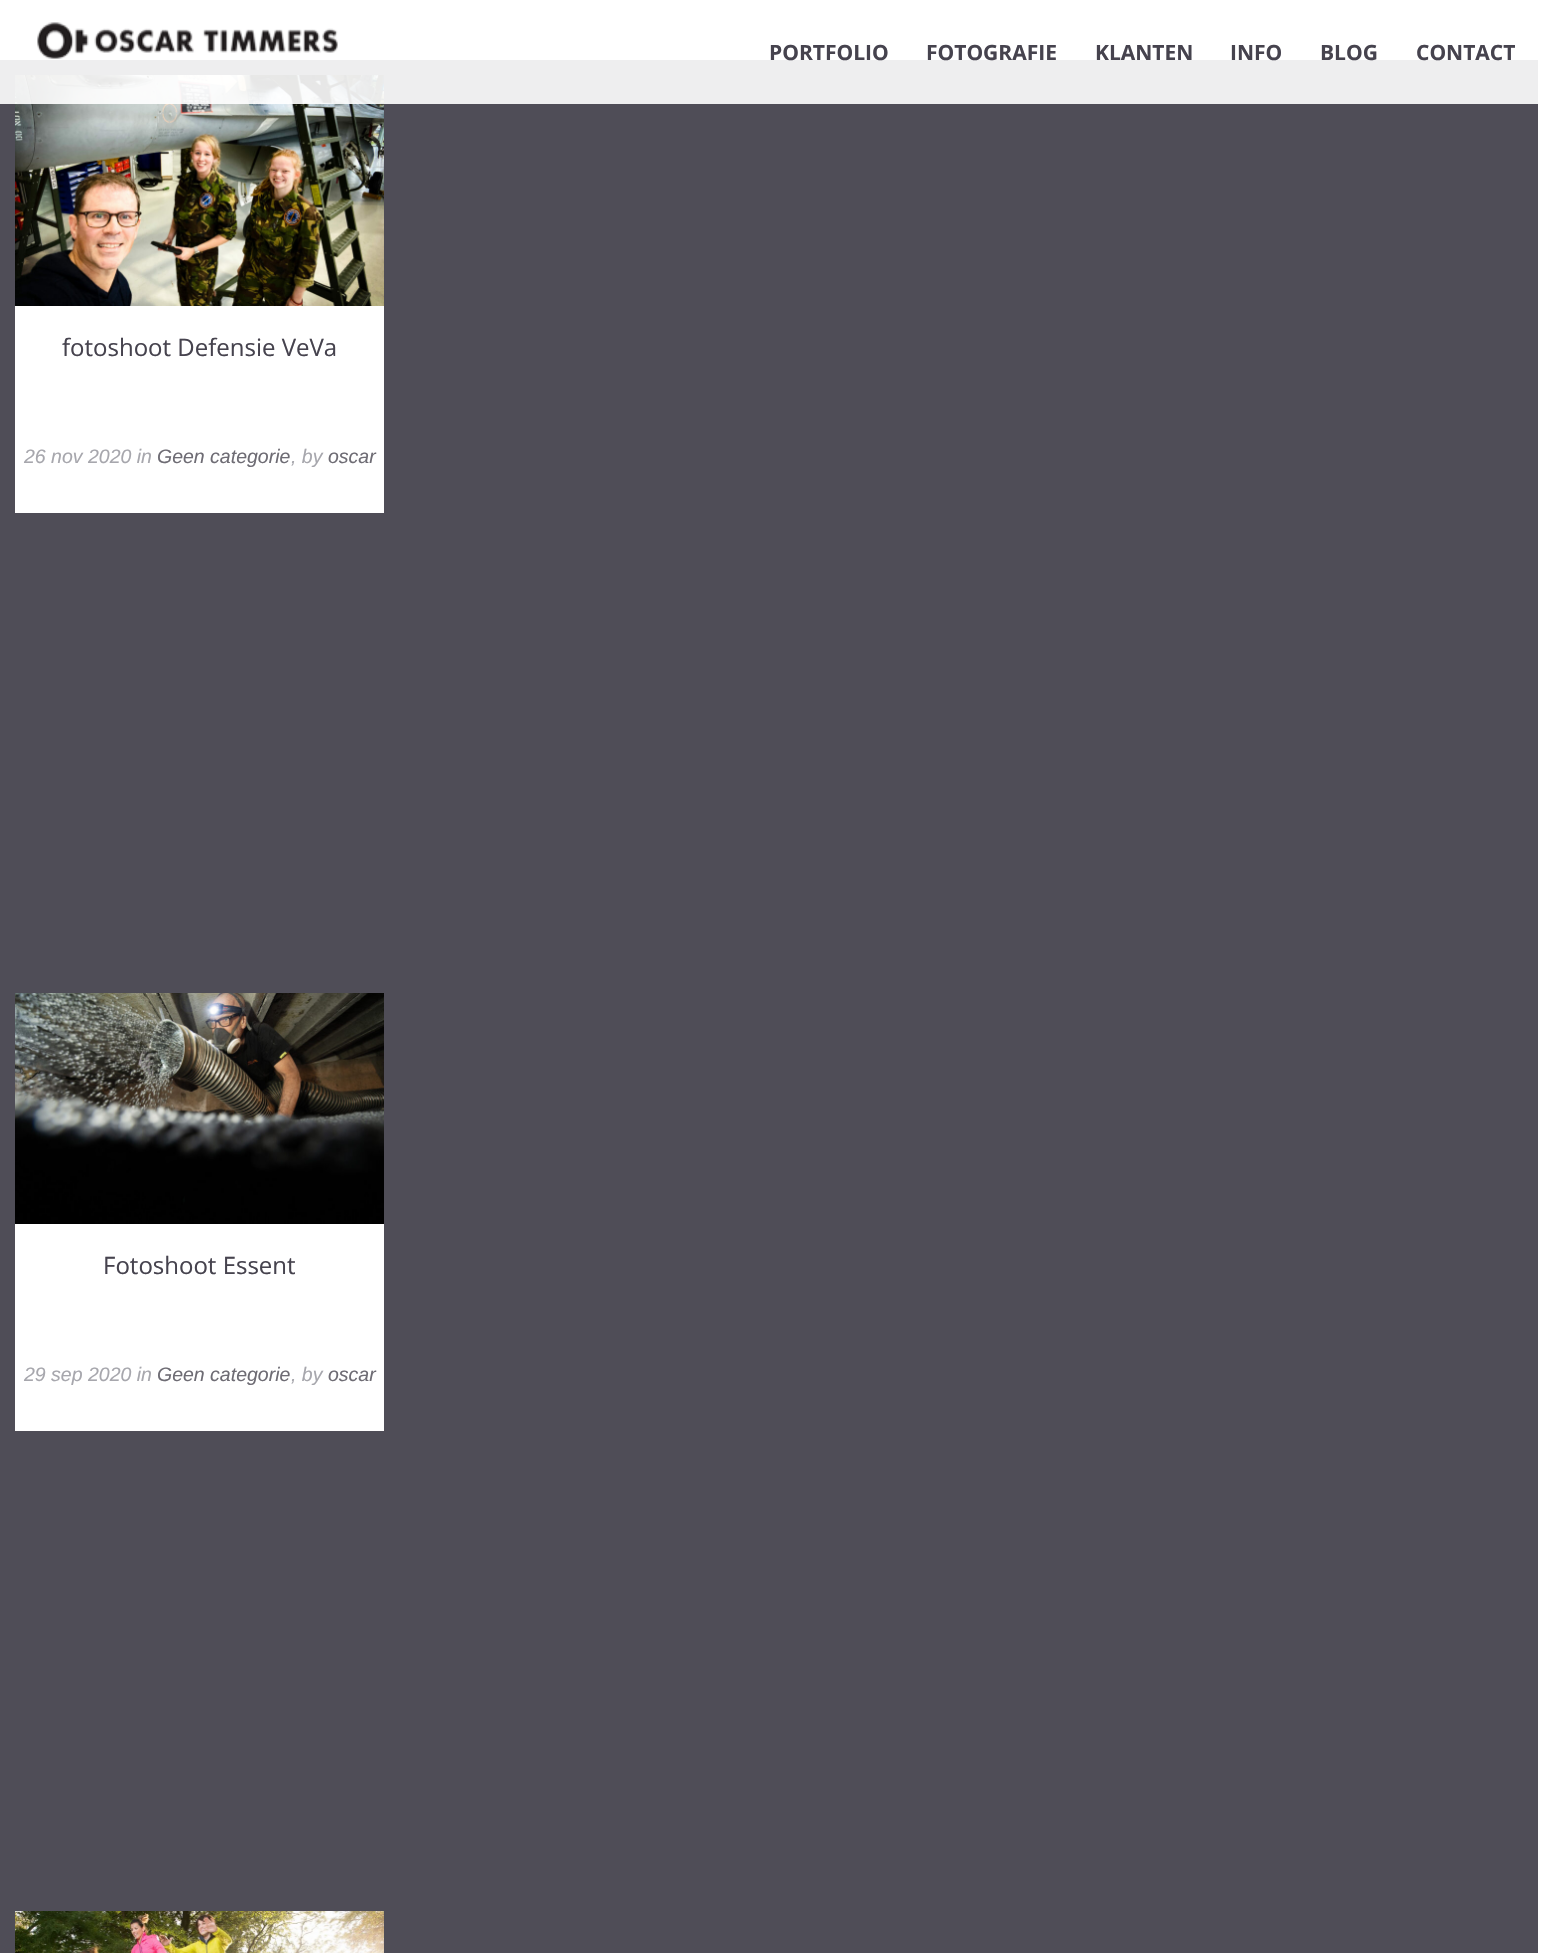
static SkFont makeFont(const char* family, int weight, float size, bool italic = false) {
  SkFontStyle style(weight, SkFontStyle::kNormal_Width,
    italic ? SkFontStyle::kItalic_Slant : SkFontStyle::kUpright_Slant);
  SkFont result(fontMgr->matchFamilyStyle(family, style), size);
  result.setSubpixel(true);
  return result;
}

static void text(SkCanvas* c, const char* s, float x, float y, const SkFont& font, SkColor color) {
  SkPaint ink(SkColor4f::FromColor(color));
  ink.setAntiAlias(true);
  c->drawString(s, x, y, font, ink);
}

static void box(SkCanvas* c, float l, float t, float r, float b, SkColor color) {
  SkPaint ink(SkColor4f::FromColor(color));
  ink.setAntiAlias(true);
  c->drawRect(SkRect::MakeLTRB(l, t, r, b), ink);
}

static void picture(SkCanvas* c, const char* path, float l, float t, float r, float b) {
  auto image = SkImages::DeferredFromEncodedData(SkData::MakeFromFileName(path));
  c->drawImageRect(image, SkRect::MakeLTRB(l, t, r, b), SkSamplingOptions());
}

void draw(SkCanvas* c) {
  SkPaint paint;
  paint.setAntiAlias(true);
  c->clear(0xffffffff);
  box(c, 0, 60, 1538, 1953, 0xff4f4d57);
  picture(c, "img_02.png", 15, 75, 384, 306);
  box(c, 0, 60, 1538, 104, 0xe6ffffff);
  picture(c, "img_01.png", 37, 22, 338, 59);
  SkFont face1 = makeFont("Open Sans", 700, 21);
  text(c, "PORTFOLIO", 769, 60, face1, 0xff46434e);
  text(c, "FOTOGRAFIE", 926, 60, face1, 0xff46434e);
  text(c, "KLANTEN", 1095, 60, face1, 0xff46434e);
  text(c, "INFO", 1230, 60, face1, 0xff46434e);
  text(c, "BLOG", 1320, 60, face1, 0xff46434e);
  text(c, "CONTACT", 1416, 60, face1, 0xff46434e);
  box(c, 15, 306, 384, 513, 0xffffffff);
  SkFont face2 = makeFont("Open Sans", 400, 24);
  text(c, "fotoshoot Defensie VeVa", 62, 356, face2, 0xff46434e);
  SkFont face3 = makeFont("Liberation Sans", 400, 19.5f, true);
  text(c, "26 nov 2020 in", 24, 463, face3, 0xffa7a7ad);
  text(c, "Geen categorie", 157, 463, face3, 0xff6e6c74);
  text(c, ", by", 291, 463, face3, 0xffa7a7ad);
  text(c, "oscar", 328, 463, face3, 0xff6e6c74);
  box(c, 15, 1224, 384, 1431, 0xffffffff);
  picture(c, "img_03.png", 15, 993, 384, 1224);
  text(c, "Fotoshoot Essent", 103, 1274, face2, 0xff46434e);
  text(c, "29 sep 2020 in", 24, 1381, face3, 0xffa7a7ad);
  text(c, "Geen categorie", 157, 1381, face3, 0xff6e6c74);
  text(c, ", by", 291, 1381, face3, 0xffa7a7ad);
  text(c, "oscar", 328, 1381, face3, 0xff6e6c74);
  picture(c, "img_04.png", 15, 1911, 384, 1953);
}
